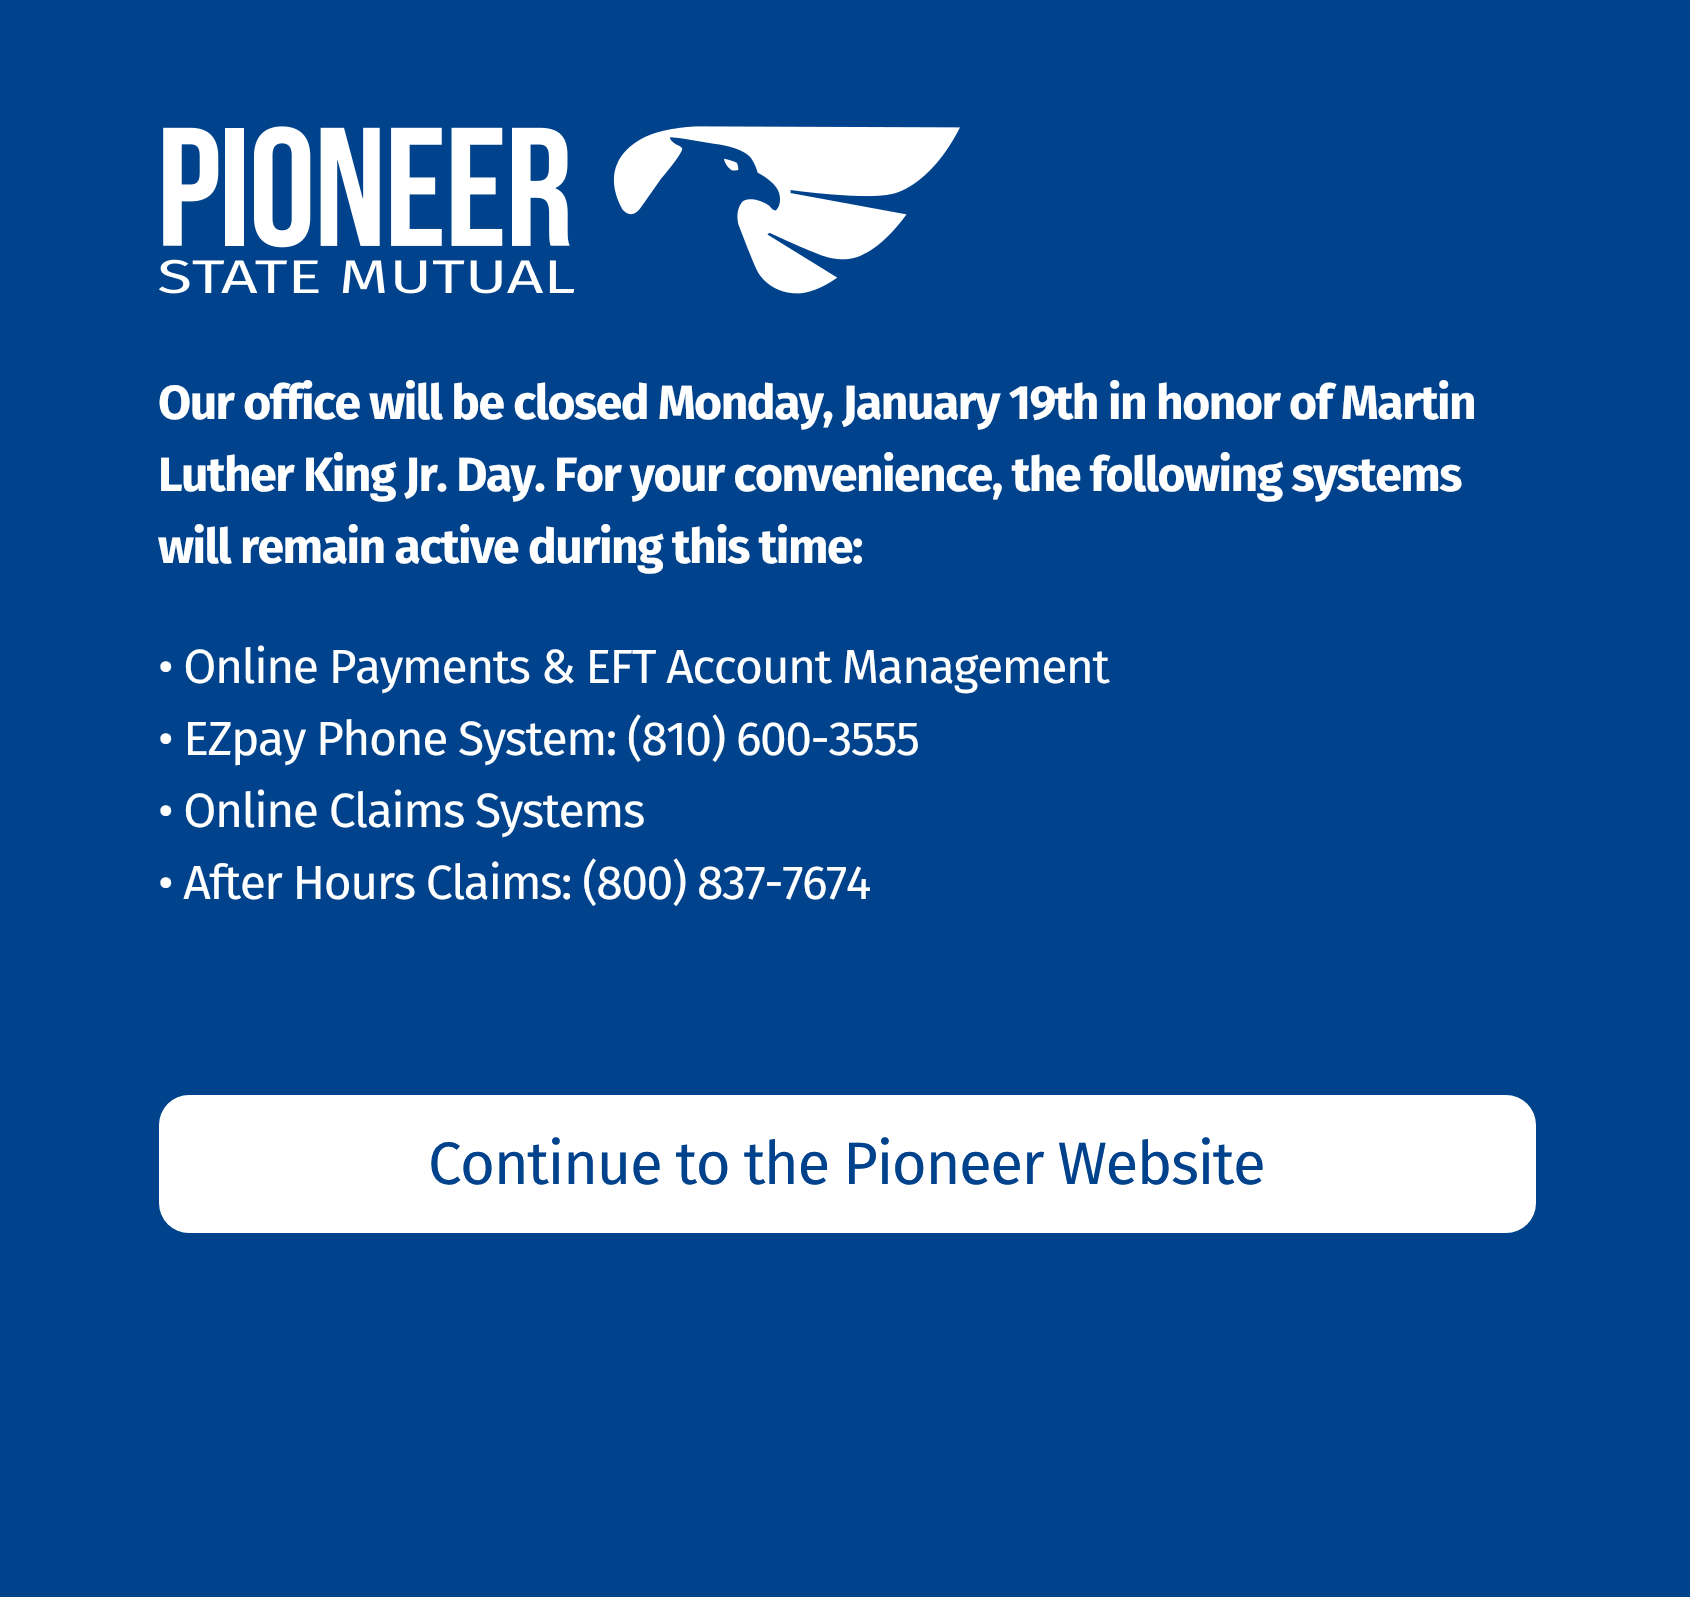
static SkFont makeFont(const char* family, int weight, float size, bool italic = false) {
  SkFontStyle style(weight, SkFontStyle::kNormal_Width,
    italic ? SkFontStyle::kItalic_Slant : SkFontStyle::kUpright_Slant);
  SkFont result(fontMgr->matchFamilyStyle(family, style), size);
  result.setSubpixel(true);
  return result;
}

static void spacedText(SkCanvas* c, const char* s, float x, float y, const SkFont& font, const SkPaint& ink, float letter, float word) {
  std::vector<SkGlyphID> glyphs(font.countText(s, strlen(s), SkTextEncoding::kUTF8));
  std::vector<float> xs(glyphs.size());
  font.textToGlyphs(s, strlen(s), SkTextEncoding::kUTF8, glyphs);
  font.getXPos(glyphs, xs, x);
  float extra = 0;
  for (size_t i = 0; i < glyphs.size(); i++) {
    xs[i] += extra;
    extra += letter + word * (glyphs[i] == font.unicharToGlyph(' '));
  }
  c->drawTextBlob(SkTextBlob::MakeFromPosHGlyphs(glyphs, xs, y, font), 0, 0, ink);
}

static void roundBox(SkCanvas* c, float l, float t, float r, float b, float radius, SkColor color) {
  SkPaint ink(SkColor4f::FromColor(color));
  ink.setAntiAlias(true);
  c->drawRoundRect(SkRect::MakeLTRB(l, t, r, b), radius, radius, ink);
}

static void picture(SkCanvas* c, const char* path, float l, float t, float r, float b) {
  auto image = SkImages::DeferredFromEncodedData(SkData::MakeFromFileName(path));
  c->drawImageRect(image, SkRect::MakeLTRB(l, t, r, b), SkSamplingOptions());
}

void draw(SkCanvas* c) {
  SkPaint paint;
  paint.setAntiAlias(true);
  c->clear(0xff00428c);
  picture(c, "img_01.png", 159, 126, 960, 294);
  SkFont face1 = makeFont("Fira Sans", 700, 48);
  paint.setColor(0xffffffff);
  spacedText(c, "Our office will be closed Monday, January 19th in honor of Martin", 158, 419, face1, paint, -1.5f, 0);
  spacedText(c, "Luther King Jr. Day. For your convenience, the following systems", 158, 491, face1, paint, -1.5f, 0);
  spacedText(c, "will remain active during this time:", 158, 563, face1, paint, -1.5f, 0);
  SkFont face2 = makeFont("Fira Sans", 400, 48);
  spacedText(c, "• Online Payments & EFT Account Management", 158, 683, face2, paint, -1.5f, 0);
  spacedText(c, "• EZpay Phone System: (810) 600-3555", 158, 755, face2, paint, -1.5f, 0);
  spacedText(c, "• Online Claims Systems", 158, 827, face2, paint, -1.5f, 0);
  spacedText(c, "• After Hours Claims: (800) 837-7674", 158, 899, face2, paint, -1.5f, 0);
  roundBox(c, 159, 1095, 1536, 1233, 30, 0xffffffff);
  SkFont face3 = makeFont("Fira Sans", 400, 60);
  paint.setColor(0xff00428c);
  spacedText(c, "Continue to the Pioneer Website", 428, 1184, face3, paint, -1.5f, 0);
}
